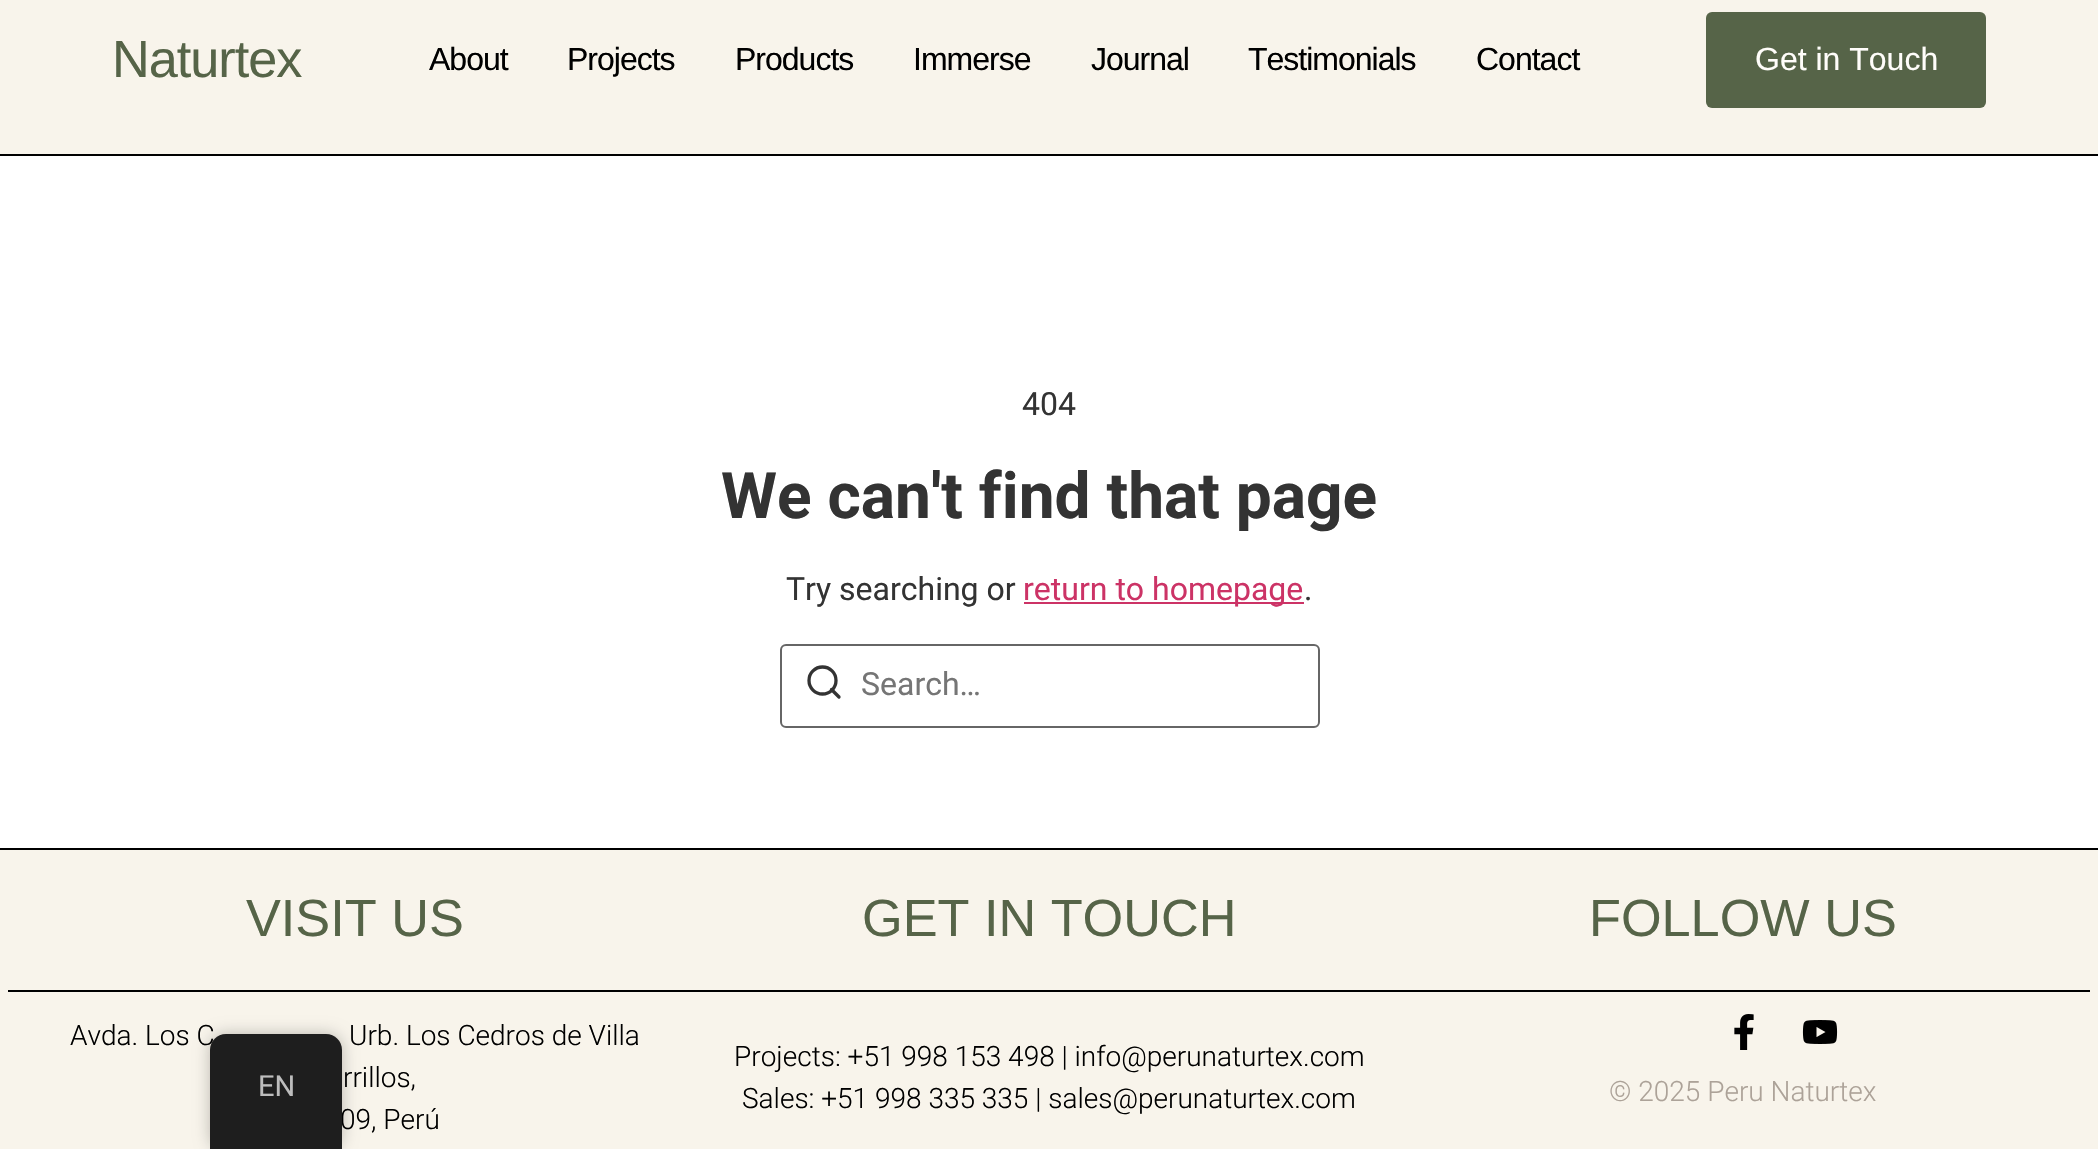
static SkFont makeFont(const char* family, int weight, float size, bool italic = false) {
  SkFontStyle style(weight, SkFontStyle::kNormal_Width,
    italic ? SkFontStyle::kItalic_Slant : SkFontStyle::kUpright_Slant);
  SkFont result(fontMgr->matchFamilyStyle(family, style), size);
  result.setSubpixel(true);
  return result;
}

static void text(SkCanvas* c, const char* s, float x, float y, const SkFont& font, SkColor color) {
  SkPaint ink(SkColor4f::FromColor(color));
  ink.setAntiAlias(true);
  c->drawString(s, x, y, font, ink);
}

static void spacedText(SkCanvas* c, const char* s, float x, float y, const SkFont& font, const SkPaint& ink, float letter, float word) {
  std::vector<SkGlyphID> glyphs(font.countText(s, strlen(s), SkTextEncoding::kUTF8));
  std::vector<float> xs(glyphs.size());
  font.textToGlyphs(s, strlen(s), SkTextEncoding::kUTF8, glyphs);
  font.getXPos(glyphs, xs, x);
  float extra = 0;
  for (size_t i = 0; i < glyphs.size(); i++) {
    xs[i] += extra;
    extra += letter + word * (glyphs[i] == font.unicharToGlyph(' '));
  }
  c->drawTextBlob(SkTextBlob::MakeFromPosHGlyphs(glyphs, xs, y, font), 0, 0, ink);
}

static void box(SkCanvas* c, float l, float t, float r, float b, SkColor color) {
  SkPaint ink(SkColor4f::FromColor(color));
  ink.setAntiAlias(true);
  c->drawRect(SkRect::MakeLTRB(l, t, r, b), ink);
}

static void roundBox(SkCanvas* c, float l, float t, float r, float b, float radius, SkColor color) {
  SkPaint ink(SkColor4f::FromColor(color));
  ink.setAntiAlias(true);
  c->drawRoundRect(SkRect::MakeLTRB(l, t, r, b), radius, radius, ink);
}

static void picture(SkCanvas* c, const char* path, float l, float t, float r, float b) {
  auto image = SkImages::DeferredFromEncodedData(SkData::MakeFromFileName(path));
  c->drawImageRect(image, SkRect::MakeLTRB(l, t, r, b), SkSamplingOptions());
}

void draw(SkCanvas* c) {
  SkPaint paint;
  paint.setAntiAlias(true);
  c->clear(0xffffffff);
  box(c, 0, 0, 2098, 154, 0xfff8f4eb);
  box(c, 0, 154, 2098, 156, 0xff000000);
  SkFont face1 = makeFont("Liberation Sans", 400, 52.25f);
  paint.setColor(0xff566448);
  spacedText(c, "Naturtex", 112, 77, face1, paint, -1, 0);
  SkFont face2 = makeFont("Liberation Sans", 400, 32);
  paint.setColor(0xff000000);
  spacedText(c, "About", 429, 70, face2, paint, -1, 0);
  spacedText(c, "Projects", 567, 70, face2, paint, -1, 0);
  spacedText(c, "Products", 735, 70, face2, paint, -1, 0);
  spacedText(c, "Immerse", 913, 70, face2, paint, -1, 0);
  spacedText(c, "Journal", 1091, 70, face2, paint, -1, 0);
  spacedText(c, "Testimonials", 1248, 70, face2, paint, -1, 0);
  spacedText(c, "Contact", 1476, 70, face2, paint, -1, 0);
  roundBox(c, 1706, 12, 1986, 108, 6, 0xff566448);
  text(c, "Get in Touch", 1755, 70, face2, 0xfffffdfa);
  SkFont face3 = makeFont("Roboto", 400, 32);
  text(c, "404", 1022, 415, face3, 0xff333333);
  SkFont face4 = makeFont("Roboto", 700, 64);
  text(c, "We can't find that page", 721, 518, face4, 0xff333333);
  text(c, "Try searching or", 786, 600, face3, 0xff333333);
  box(c, 1024, 602, 1304, 604, 0xffcc3366);
  text(c, "return to homepage", 1023, 600, face3, 0xffcc3366);
  text(c, ".", 1304, 600, face3, 0xff333333);
  paint.setStyle(SkPaint::kStroke_Style);
  paint.setStrokeWidth(2);
  paint.setColor(0xff666666);
  c->drawRoundRect(SkRect::MakeLTRB(781, 645, 1319, 727), 5, 5, paint);
  paint.setStrokeWidth(3.3f);
  paint.setColor(0xff333333);
  c->drawCircle(822.5f, 680.5f, 13.5f, paint);
  paint.setStrokeCap(SkPaint::kRound_Cap);
  paint.setStrokeJoin(SkPaint::kRound_Join);
  c->drawPath(SkPathBuilder().moveTo(839, 697).lineTo(831.5f, 689.5f).detach(), paint);
  text(c, "Search…", 861, 695, face3, 0xff757575);
  box(c, 0, 850, 2098, 1149, 0xfff8f4eb);
  box(c, 0, 848, 2098, 850, 0xff000000);
  text(c, "VISIT US", 246, 936, face1, 0xff566448);
  box(c, 8, 990, 2090, 992, 0xff000000);
  SkFont face5 = makeFont("Roboto", 300, 28);
  text(c, "Avda. Los C", 70, 1045, face5, 0xff000000);
  text(c, "Urb. Los Cedros de Villa", 349, 1045, face5, 0xff000000);
  text(c, "rrillos,", 343, 1087, face5, 0xff000000);
  text(c, "09, Perú", 340, 1129, face5, 0xff000000);
  text(c, "GET IN TOUCH", 862, 936, face1, 0xff566448);
  text(c, "Projects: +51 998 153 498 | info@perunaturtex.com", 734, 1066, face5, 0xff000000);
  text(c, "Sales: +51 998 335 335 | sales@perunaturtex.com", 742, 1108, face5, 0xff000000);
  text(c, "FOLLOW US", 1589, 936, face1, 0xff566448);
  picture(c, "img_01.png", 1734, 1014, 1754, 1050);
  picture(c, "img_02.png", 1802, 1020, 1838, 1044);
  text(c, "© 2025 Peru Naturtex", 1609, 1101, face5, 0xffaca298);
  paint.setStyle(SkPaint::kFill_Style);
  paint.setColor(0x40000000);
  paint.setMaskFilter(SkMaskFilter::MakeBlur(kNormal_SkBlurStyle, 8));
  c->drawRoundRect(SkRect::MakeLTRB(210, 1034, 342, 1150), 16, 16, paint);
  paint.setMaskFilter(nullptr);
  paint.setColor(0xff1e1e1e);
  c->drawPath(SkPathBuilder().moveTo(226, 1034).lineTo(326, 1034).cubicTo(335, 1034, 342, 1041, 342, 1050).lineTo(342, 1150).lineTo(210, 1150).lineTo(210, 1050).cubicTo(210, 1041, 217, 1034, 226, 1034).close().detach(), paint);
  SkFont face6 = makeFont("Roboto", 400, 29);
  text(c, "EN", 258, 1096, face6, 0xffbdbdbd);
}
